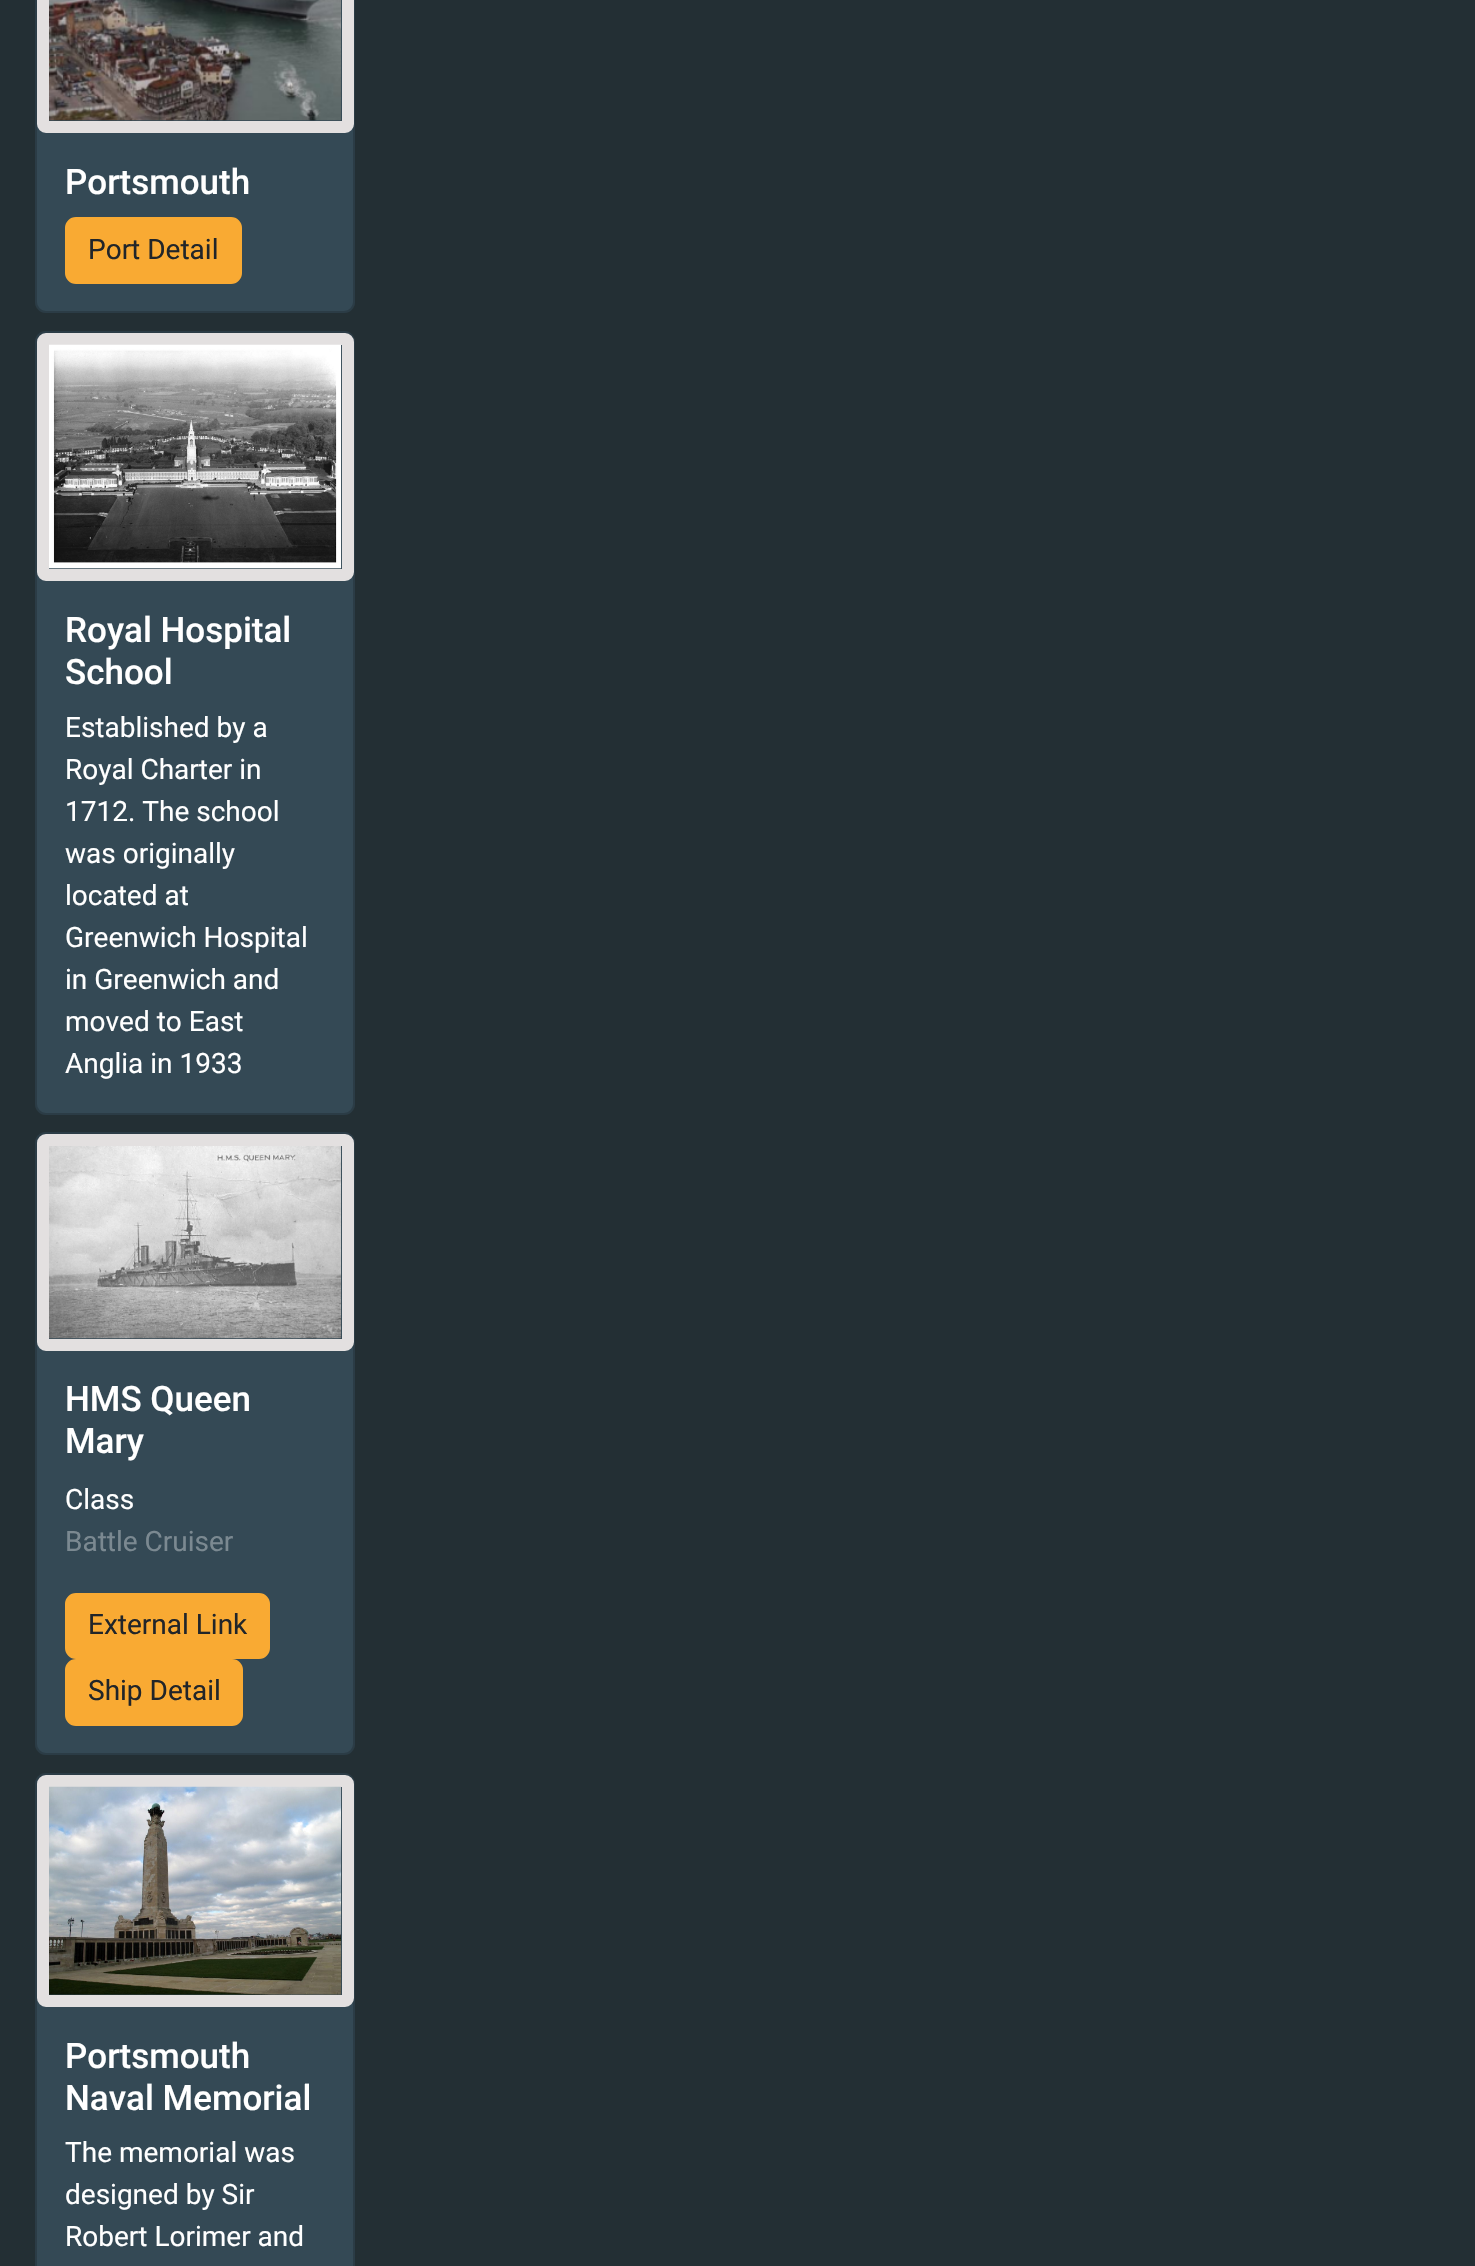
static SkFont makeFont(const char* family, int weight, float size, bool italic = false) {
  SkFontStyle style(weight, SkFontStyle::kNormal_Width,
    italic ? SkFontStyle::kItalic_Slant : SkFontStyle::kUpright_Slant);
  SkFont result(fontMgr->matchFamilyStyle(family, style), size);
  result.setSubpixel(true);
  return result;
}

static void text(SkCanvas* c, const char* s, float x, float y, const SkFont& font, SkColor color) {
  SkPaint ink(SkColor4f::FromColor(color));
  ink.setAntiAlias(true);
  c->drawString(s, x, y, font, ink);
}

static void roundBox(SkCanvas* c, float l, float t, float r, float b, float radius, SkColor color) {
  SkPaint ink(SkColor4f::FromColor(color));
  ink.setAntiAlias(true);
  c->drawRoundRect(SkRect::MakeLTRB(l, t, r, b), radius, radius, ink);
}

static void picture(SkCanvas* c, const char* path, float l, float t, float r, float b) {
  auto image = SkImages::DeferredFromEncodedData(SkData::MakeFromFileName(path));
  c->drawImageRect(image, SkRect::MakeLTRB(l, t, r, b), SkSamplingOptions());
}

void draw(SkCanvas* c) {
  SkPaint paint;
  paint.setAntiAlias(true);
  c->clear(0xff232f34);
  roundBox(c, 35, -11, 355, 313, 11, 0xff344955);
  paint.setStyle(SkPaint::kStroke_Style);
  paint.setStrokeWidth(2);
  paint.setColor(0x2e000000);
  c->drawRoundRect(SkRect::MakeLTRB(36, -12, 354, 312), 10, 10, paint);
  paint.setStrokeWidth(12);
  paint.setColor(0xffe3e0e0);
  c->drawRoundRect(SkRect::MakeLTRB(43, -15, 348, 127), 3, 3, paint);
  picture(c, "img_01.png", 49, 0, 342, 121);
  SkFont face1 = makeFont("Roboto", 500, 35);
  text(c, "Portsmouth", 65, 194, face1, 0xffffffff);
  paint.setStyle(SkPaint::kFill_Style);
  paint.setColor(0xfff9aa33);
  c->drawRoundRect(SkRect::MakeLTRB(66, 218, 241, 283), 10, 10, paint);
  paint.setStyle(SkPaint::kStroke_Style);
  paint.setStrokeWidth(2);
  c->drawRoundRect(SkRect::MakeLTRB(66, 218, 241, 283), 10, 10, paint);
  SkFont face2 = makeFont("Roboto", 400, 28);
  text(c, "Port Detail", 88, 259, face2, 0xff212529);
  roundBox(c, 35, 331, 355, 1115, 11, 0xff344955);
  paint.setColor(0x2e000000);
  c->drawRoundRect(SkRect::MakeLTRB(36, 332, 354, 1114), 10, 10, paint);
  paint.setStrokeWidth(12);
  paint.setColor(0xffe3e0e0);
  c->drawRoundRect(SkRect::MakeLTRB(43, 339, 348, 575), 3, 3, paint);
  picture(c, "img_02.png", 49, 344, 342, 569);
  text(c, "Royal Hospital", 65, 642, face1, 0xffffffff);
  text(c, "School", 65, 684, face1, 0xffffffff);
  text(c, "Established by a", 65, 737, face2, 0xffffffff);
  text(c, "Royal Charter in", 65, 779, face2, 0xffffffff);
  text(c, "1712. The school", 65, 821, face2, 0xffffffff);
  text(c, "was originally", 65, 863, face2, 0xffffffff);
  text(c, "located at", 65, 905, face2, 0xffffffff);
  text(c, "Greenwich Hospital", 65, 947, face2, 0xffffffff);
  text(c, "in Greenwich and", 65, 989, face2, 0xffffffff);
  text(c, "moved to East", 65, 1031, face2, 0xffffffff);
  text(c, "Anglia in 1933", 65, 1073, face2, 0xffffffff);
  roundBox(c, 35, 1132, 355, 1755, 11, 0xff344955);
  paint.setStrokeWidth(2);
  paint.setColor(0x2e000000);
  c->drawRoundRect(SkRect::MakeLTRB(36, 1133, 354, 1754), 10, 10, paint);
  paint.setStrokeWidth(12);
  paint.setColor(0xffe3e0e0);
  c->drawRoundRect(SkRect::MakeLTRB(43, 1140, 348, 1345), 3, 3, paint);
  picture(c, "img_03.png", 49, 1146, 342, 1339);
  text(c, "HMS Queen", 65, 1411, face1, 0xffffffff);
  text(c, "Mary", 65, 1453, face1, 0xffffffff);
  text(c, "Class", 65, 1509, face2, 0xffffffff);
  text(c, "Battle Cruiser", 65, 1551, face2, 0xff7b8991);
  paint.setStyle(SkPaint::kFill_Style);
  paint.setColor(0xfff9aa33);
  c->drawRoundRect(SkRect::MakeLTRB(66, 1594, 269, 1658), 10, 10, paint);
  paint.setStyle(SkPaint::kStroke_Style);
  paint.setStrokeWidth(2);
  c->drawRoundRect(SkRect::MakeLTRB(66, 1594, 269, 1658), 10, 10, paint);
  text(c, "External Link", 88, 1634, face2, 0xff212529);
  paint.setStyle(SkPaint::kFill_Style);
  c->drawRoundRect(SkRect::MakeLTRB(66, 1660, 242, 1725), 10, 10, paint);
  paint.setStyle(SkPaint::kStroke_Style);
  c->drawRoundRect(SkRect::MakeLTRB(66, 1660, 242, 1725), 10, 10, paint);
  text(c, "Ship Detail", 88, 1700, face2, 0xff212529);
  roundBox(c, 35, 1773, 355, 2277, 11, 0xff344955);
  paint.setColor(0x2e000000);
  c->drawRoundRect(SkRect::MakeLTRB(36, 1774, 354, 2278), 10, 10, paint);
  paint.setStrokeWidth(12);
  paint.setColor(0xffe3e0e0);
  c->drawRoundRect(SkRect::MakeLTRB(43, 1781, 348, 2001), 3, 3, paint);
  picture(c, "img_04.png", 49, 1786, 342, 1995);
  text(c, "Portsmouth", 65, 2068, face1, 0xffffffff);
  text(c, "Naval Memorial", 65, 2110, face1, 0xffffffff);
  text(c, "The memorial was", 65, 2162, face2, 0xffffffff);
  text(c, "designed by Sir", 65, 2204, face2, 0xffffffff);
  text(c, "Robert Lorimer and", 65, 2246, face2, 0xffffffff);
}
